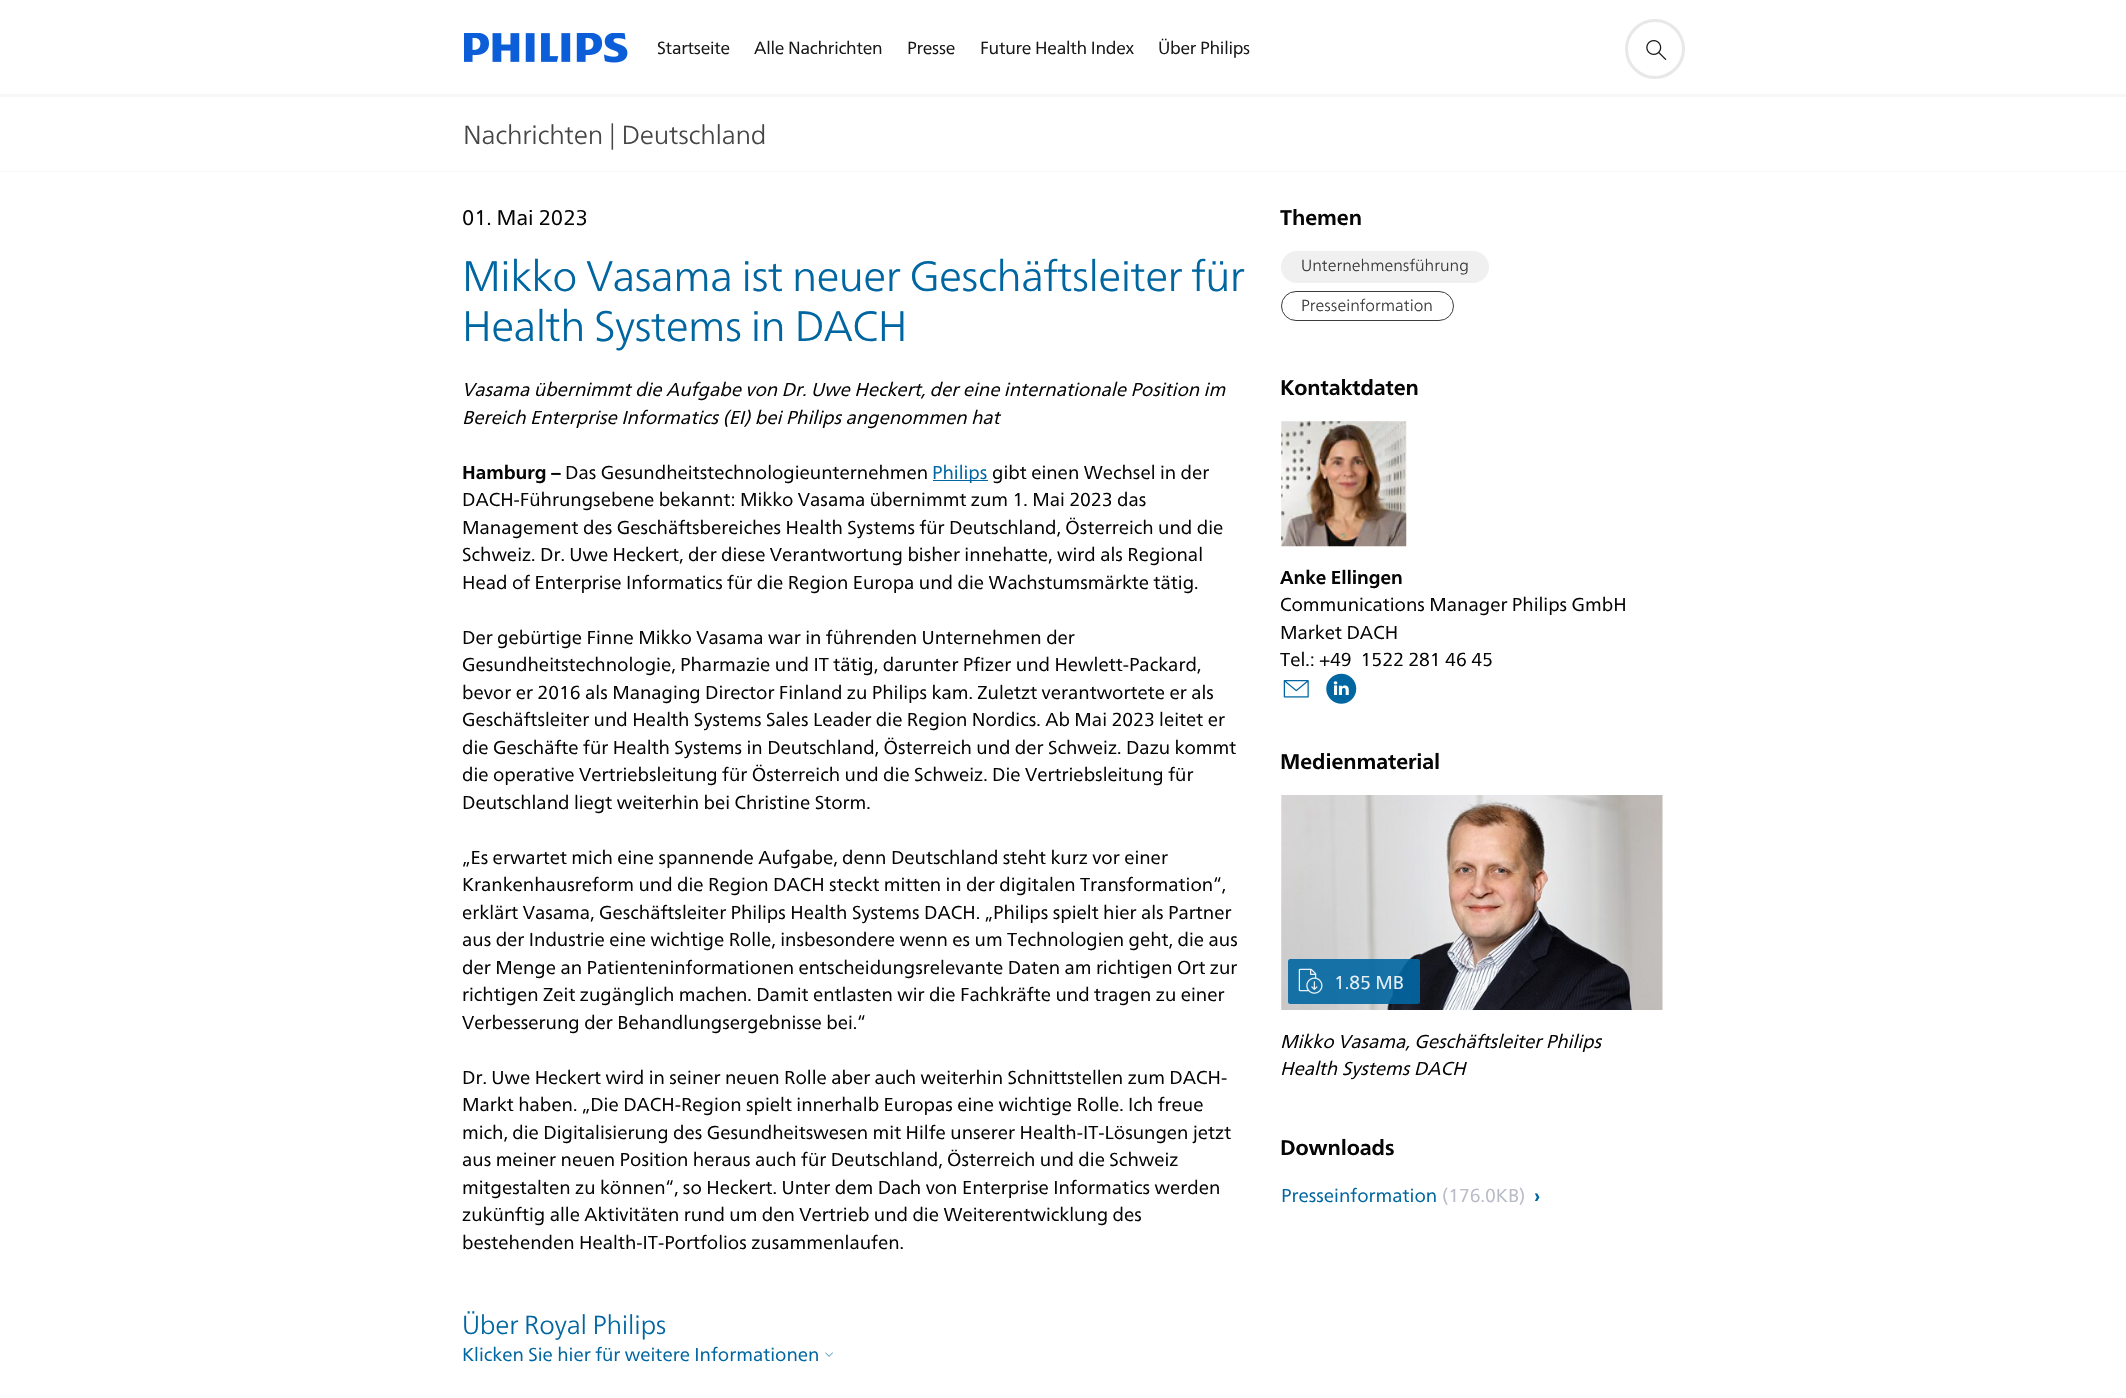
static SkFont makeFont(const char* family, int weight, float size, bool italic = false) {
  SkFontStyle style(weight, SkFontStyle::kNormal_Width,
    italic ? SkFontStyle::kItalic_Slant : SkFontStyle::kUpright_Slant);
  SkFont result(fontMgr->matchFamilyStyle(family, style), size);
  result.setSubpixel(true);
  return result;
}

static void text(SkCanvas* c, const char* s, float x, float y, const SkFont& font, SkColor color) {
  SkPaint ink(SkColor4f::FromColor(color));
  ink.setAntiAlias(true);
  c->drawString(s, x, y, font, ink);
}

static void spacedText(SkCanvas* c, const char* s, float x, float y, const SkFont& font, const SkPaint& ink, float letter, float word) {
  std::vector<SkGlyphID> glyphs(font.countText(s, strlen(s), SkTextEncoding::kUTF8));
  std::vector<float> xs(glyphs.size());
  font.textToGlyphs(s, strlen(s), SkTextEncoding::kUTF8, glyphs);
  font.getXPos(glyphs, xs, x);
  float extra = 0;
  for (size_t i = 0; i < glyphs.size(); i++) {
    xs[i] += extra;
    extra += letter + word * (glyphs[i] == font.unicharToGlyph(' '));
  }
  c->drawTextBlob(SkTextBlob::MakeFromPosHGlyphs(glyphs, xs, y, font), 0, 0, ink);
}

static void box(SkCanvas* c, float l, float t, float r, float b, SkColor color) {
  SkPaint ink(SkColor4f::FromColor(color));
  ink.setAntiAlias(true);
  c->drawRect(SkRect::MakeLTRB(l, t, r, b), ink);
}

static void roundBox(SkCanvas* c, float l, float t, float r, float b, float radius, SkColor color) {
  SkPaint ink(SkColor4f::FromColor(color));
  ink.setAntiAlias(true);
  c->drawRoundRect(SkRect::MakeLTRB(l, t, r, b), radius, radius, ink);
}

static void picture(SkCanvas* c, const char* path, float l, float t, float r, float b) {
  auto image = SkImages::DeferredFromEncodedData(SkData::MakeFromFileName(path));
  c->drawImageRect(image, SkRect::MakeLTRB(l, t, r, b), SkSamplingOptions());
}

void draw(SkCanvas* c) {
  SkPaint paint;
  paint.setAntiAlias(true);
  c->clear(0xffffffff);
  picture(c, "img_01.png", 464, 33, 628, 63);
  SkFont face1 = makeFont("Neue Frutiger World", 400, 17.5f);
  paint.setColor(0xff18181b);
  spacedText(c, "Startseite", 657, 54, face1, paint, -0.25f, 0);
  spacedText(c, "Alle Nachrichten", 754, 54, face1, paint, -0.25f, 0);
  spacedText(c, "Presse", 907, 54, face1, paint, -0.25f, 0);
  spacedText(c, "Future Health Index", 980, 54, face1, paint, -0.25f, 0);
  spacedText(c, "Über Philips", 1158, 54, face1, paint, -0.25f, 0);
  box(c, 0, 94, 2126, 97, 0xfff7f7f7);
  paint.setStyle(SkPaint::kStroke_Style);
  paint.setStrokeWidth(3);
  paint.setColor(0xffe8e8e8);
  c->drawCircle(1655, 49, 28.5f, paint);
  picture(c, "img_02.png", 1646, 40, 1667, 60);
  box(c, 0, 171, 2126, 172, 0xfff7f7f7);
  SkFont face2 = makeFont("Neue Frutiger World", 300, 26.25f);
  paint.setStyle(SkPaint::kFill_Style);
  paint.setColor(0xff454545);
  spacedText(c, "Nachrichten | Deutschland", 463, 144, face2, paint, -0.25f, 0);
  SkFont face3 = makeFont("Neue Frutiger World", 400, 21.25f);
  text(c, "01. Mai 2023", 462, 225, face3, 0xff050505);
  SkFont face4 = makeFont("Neue Frutiger World", 300, 42.5f);
  paint.setColor(0xff0066a1);
  spacedText(c, "Mikko Vasama ist neuer Geschäftsleiter für", 462, 291, face4, paint, -0.6f, 0);
  spacedText(c, "Health Systems in DACH", 462, 341, face4, paint, -0.6f, 0);
  SkFont face5 = makeFont("Neue Frutiger World", 400, 18.75f, true);
  text(c, "Vasama übernimmt die Aufgabe von Dr. Uwe Heckert, der eine internationale Position im", 462, 396, face5, 0xff050505);
  text(c, "Bereich Enterprise Informatics (EI) bei Philips angenommen hat", 462, 424, face5, 0xff050505);
  SkFont face6 = makeFont("Neue Frutiger World", 700, 18.75f);
  text(c, "Hamburg –", 462, 479, face6, 0xff050505);
  SkFont face7 = makeFont("Neue Frutiger World", 400, 18.75f);
  text(c, "Das Gesundheitstechnologieunternehmen", 565, 479, face7, 0xff050505);
  box(c, 933, 480, 988, 481, 0xff0066a1);
  text(c, "Philips", 932, 479, face7, 0xff0066a1);
  text(c, "gibt einen Wechsel in der", 992, 479, face7, 0xff050505);
  text(c, "DACH-Führungsebene bekannt: Mikko Vasama übernimmt zum 1. Mai 2023 das", 462, 506, face7, 0xff050505);
  text(c, "Management des Geschäftsbereiches Health Systems für Deutschland, Österreich und die", 462, 534, face7, 0xff050505);
  text(c, "Schweiz. Dr. Uwe Heckert, der diese Verantwortung bisher innehatte, wird als Regional", 462, 561, face7, 0xff050505);
  text(c, "Head of Enterprise Informatics für die Region Europa und die Wachstumsmärkte tätig.", 462, 589, face7, 0xff050505);
  text(c, "Der gebürtige Finne Mikko Vasama war in führenden Unternehmen der", 462, 644, face7, 0xff050505);
  text(c, "Gesundheitstechnologie, Pharmazie und IT tätig, darunter Pfizer und Hewlett-Packard,", 462, 671, face7, 0xff050505);
  text(c, "bevor er 2016 als Managing Director Finland zu Philips kam. Zuletzt verantwortete er als", 462, 699, face7, 0xff050505);
  text(c, "Geschäftsleiter und Health Systems Sales Leader die Region Nordics. Ab Mai 2023 leitet er", 462, 726, face7, 0xff050505);
  text(c, "die Geschäfte für Health Systems in Deutschland, Österreich und der Schweiz. Dazu kommt", 462, 754, face7, 0xff050505);
  text(c, "die operative Vertriebsleitung für Österreich und die Schweiz. Die Vertriebsleitung für", 462, 781, face7, 0xff050505);
  text(c, "Deutschland liegt weiterhin bei Christine Storm.", 462, 809, face7, 0xff050505);
  text(c, "„Es erwartet mich eine spannende Aufgabe, denn Deutschland steht kurz vor einer", 462, 864, face7, 0xff050505);
  text(c, "Krankenhausreform und die Region DACH steckt mitten in der digitalen Transformation“,", 462, 891, face7, 0xff050505);
  text(c, "erklärt Vasama, Geschäftsleiter Philips Health Systems DACH. „Philips spielt hier als Partner", 462, 919, face7, 0xff050505);
  text(c, "aus der Industrie eine wichtige Rolle, insbesondere wenn es um Technologien geht, die aus", 462, 946, face7, 0xff050505);
  text(c, "der Menge an Patienteninformationen entscheidungsrelevante Daten am richtigen Ort zur", 462, 974, face7, 0xff050505);
  text(c, "richtigen Zeit zugänglich machen. Damit entlasten wir die Fachkräfte und tragen zu einer", 462, 1001, face7, 0xff050505);
  text(c, "Verbesserung der Behandlungsergebnisse bei.“", 462, 1029, face7, 0xff050505);
  text(c, "Dr. Uwe Heckert wird in seiner neuen Rolle aber auch weiterhin Schnittstellen zum DACH-", 462, 1084, face7, 0xff050505);
  text(c, "Markt haben. „Die DACH-Region spielt innerhalb Europas eine wichtige Rolle. Ich freue", 462, 1111, face7, 0xff050505);
  text(c, "mich, die Digitalisierung des Gesundheitswesen mit Hilfe unserer Health-IT-Lösungen jetzt", 462, 1139, face7, 0xff050505);
  text(c, "aus meiner neuen Position heraus auch für Deutschland, Österreich und die Schweiz", 462, 1166, face7, 0xff050505);
  text(c, "mitgestalten zu können“, so Heckert. Unter dem Dach von Enterprise Informatics werden", 462, 1194, face7, 0xff050505);
  text(c, "zukünftig alle Aktivitäten rund um den Vertrieb und die Weiterentwicklung des", 462, 1221, face7, 0xff050505);
  text(c, "bestehenden Health-IT-Portfolios zusammenlaufen.", 462, 1249, face7, 0xff050505);
  spacedText(c, "Über Royal Philips", 462, 1334, face2, paint, -0.25f, 0);
  text(c, "Klicken Sie hier für weitere Informationen", 462, 1361, face7, 0xff0066a1);
  picture(c, "img_03.png", 825, 1352, 833, 1357);
  SkFont face8 = makeFont("Neue Frutiger World", 700, 21.25f);
  paint.setColor(0xff050505);
  spacedText(c, "Themen", 1280, 225, face8, paint, -0.1f, 0);
  roundBox(c, 1281, 251, 1489, 283, 16, 0xfff0f0f0);
  SkFont face9 = makeFont("Neue Frutiger World", 300, 16.25f);
  text(c, "Unternehmensführung", 1301, 271, face9, 0xff3c3c3c);
  paint.setStyle(SkPaint::kStroke_Style);
  paint.setStrokeWidth(1);
  paint.setColor(0xff3c3c3c);
  c->drawRoundRect(SkRect::MakeLTRB(1281.5f, 291.5f, 1453.5f, 320.5f), 14.5f, 14.5f, paint);
  text(c, "Presseinformation", 1301, 311, face9, 0xff3c3c3c);
  paint.setStyle(SkPaint::kFill_Style);
  paint.setColor(0xff050505);
  spacedText(c, "Kontaktdaten", 1280, 395, face8, paint, -0.1f, 0);
  picture(c, "img_04.png", 1281, 421, 1407, 547);
  spacedText(c, "Anke Ellingen", 1280, 584, face6, paint, -0.1f, 0);
  text(c, "Communications Manager Philips GmbH", 1280, 611, face7, 0xff050505);
  text(c, "Market DACH", 1280, 639, face7, 0xff050505);
  text(c, "Tel.: +49  1522 281 46 45", 1280, 666, face7, 0xff050505);
  picture(c, "img_05.png", 1283, 680, 1309, 698);
  picture(c, "img_06.png", 1326, 673, 1357, 704);
  spacedText(c, "Medienmaterial", 1280, 769, face8, paint, -0.1f, 0);
  picture(c, "img_07.png", 1281, 795, 1663, 1010);
  roundBox(c, 1288, 959, 1420, 1004, 2.5f, 0xe60066a1);
  picture(c, "img_08.png", 1298, 968, 1323, 994);
  text(c, "1.85 MB", 1334, 989, face7, 0xffe7f0f6);
  text(c, "Mikko Vasama, Geschäftsleiter Philips", 1280, 1048, face5, 0xff050505);
  text(c, "Health Systems DACH", 1280, 1075, face5, 0xff050505);
  spacedText(c, "Downloads", 1280, 1155, face8, paint, -0.1f, 0);
  text(c, "Presseinformation", 1281, 1202, face7, 0xff0066a1);
  text(c, "(176.0KB)", 1442, 1202, face7, 0xffb9bbc7);
  text(c, "›", 1534, 1202, face6, 0xff0066a1);
}
